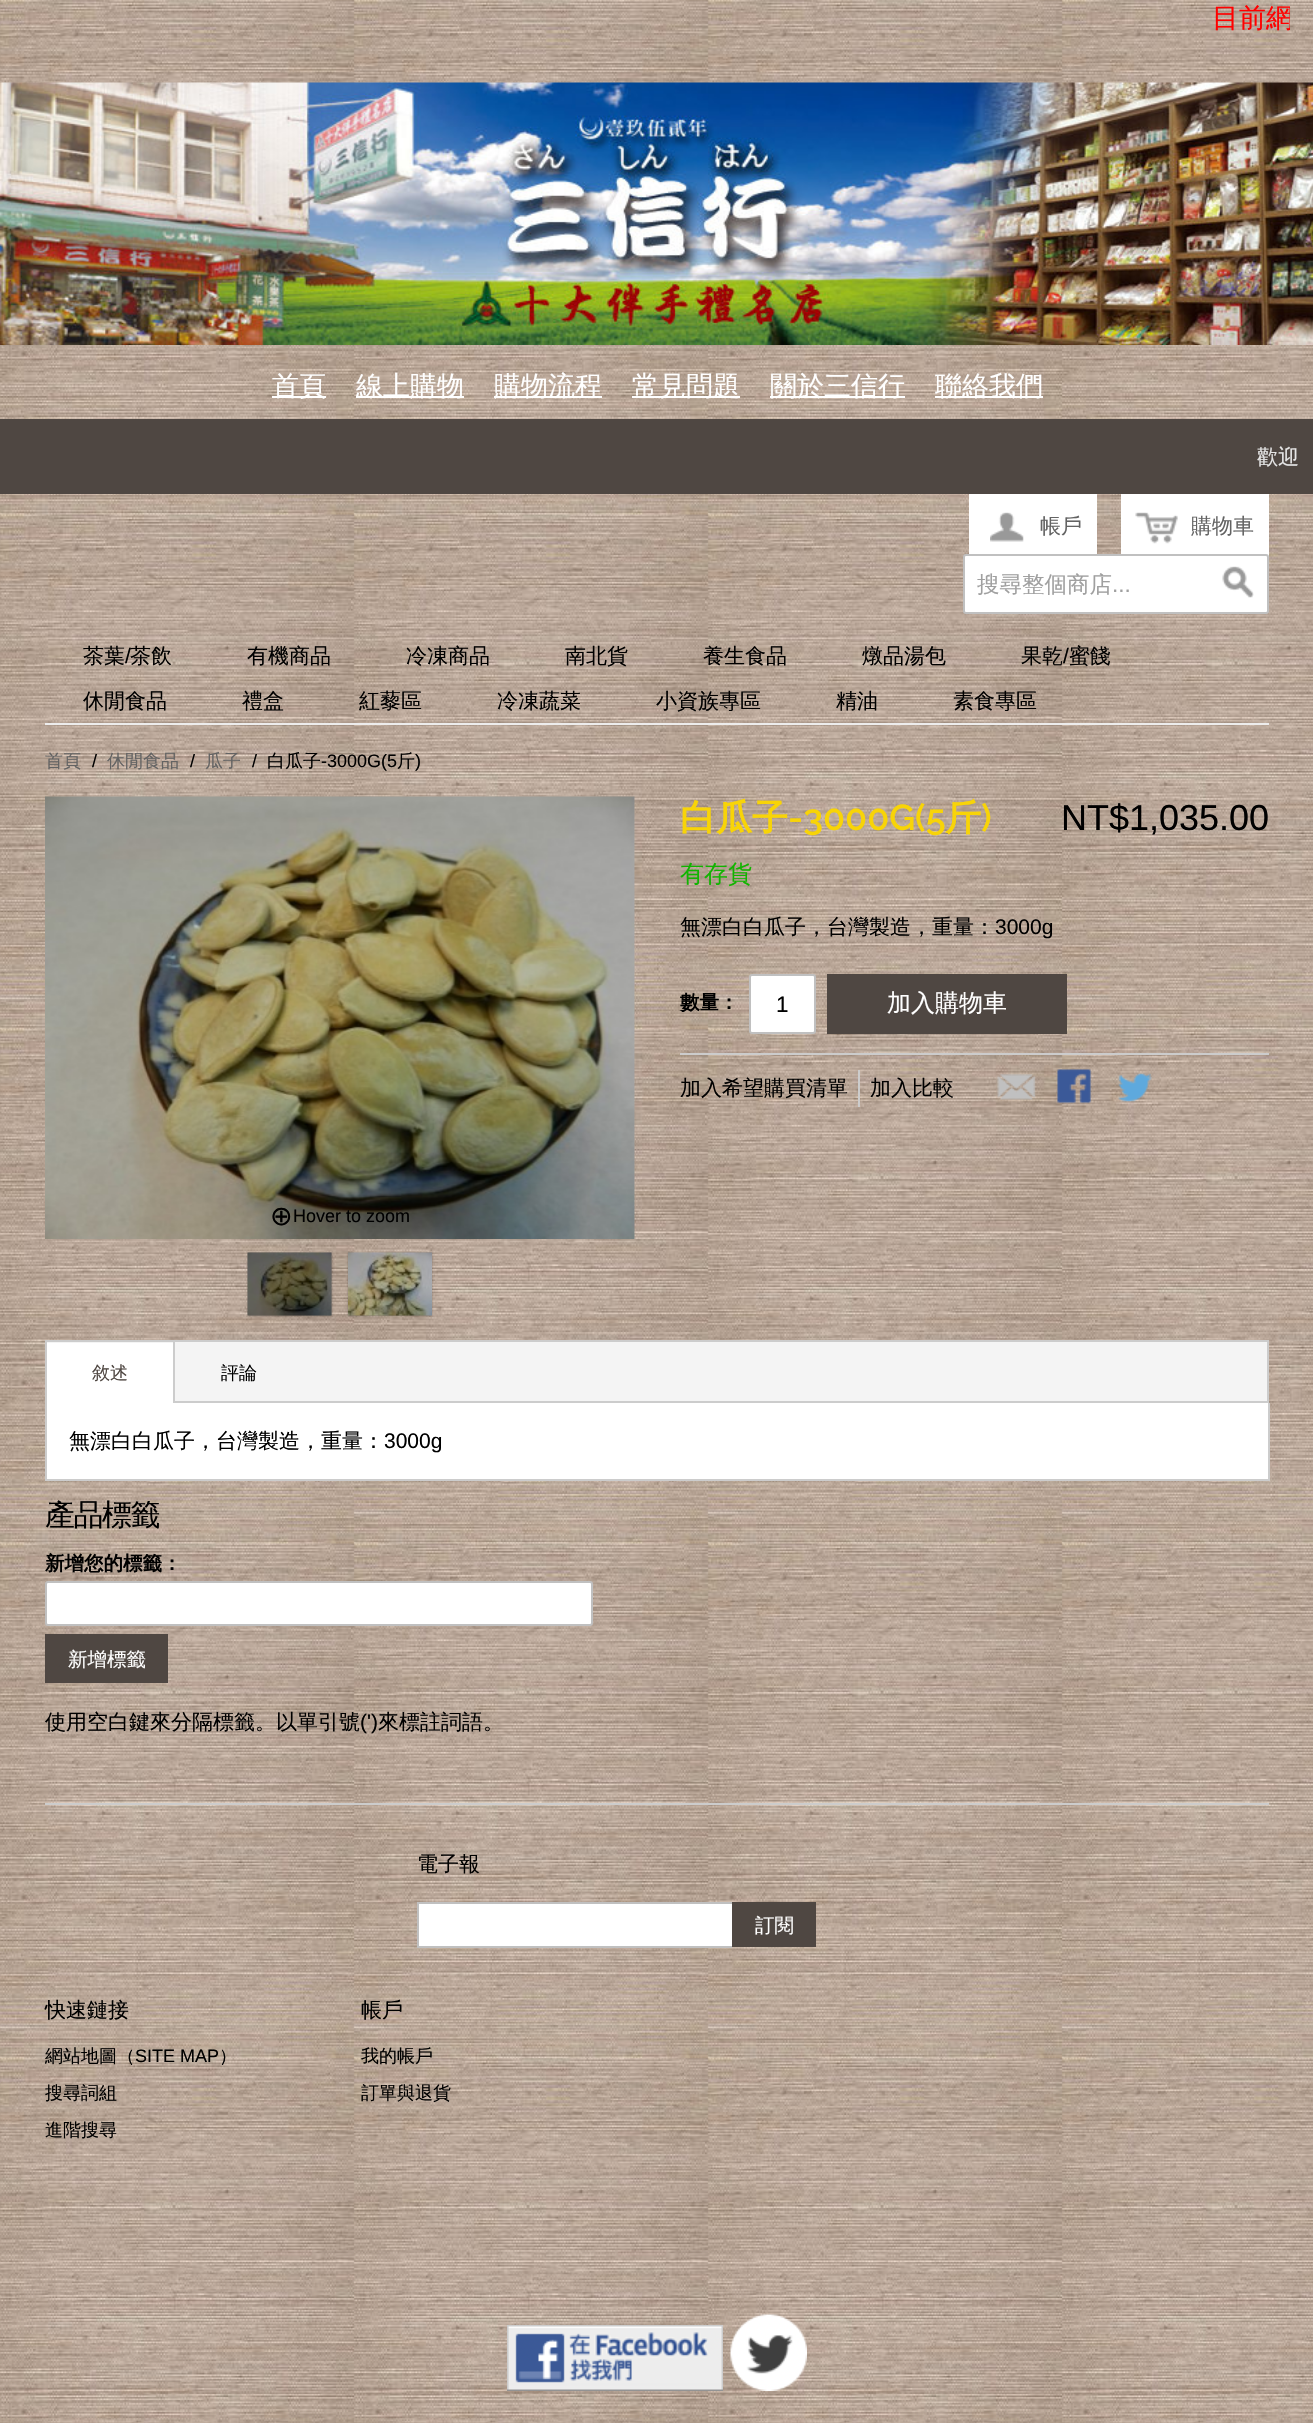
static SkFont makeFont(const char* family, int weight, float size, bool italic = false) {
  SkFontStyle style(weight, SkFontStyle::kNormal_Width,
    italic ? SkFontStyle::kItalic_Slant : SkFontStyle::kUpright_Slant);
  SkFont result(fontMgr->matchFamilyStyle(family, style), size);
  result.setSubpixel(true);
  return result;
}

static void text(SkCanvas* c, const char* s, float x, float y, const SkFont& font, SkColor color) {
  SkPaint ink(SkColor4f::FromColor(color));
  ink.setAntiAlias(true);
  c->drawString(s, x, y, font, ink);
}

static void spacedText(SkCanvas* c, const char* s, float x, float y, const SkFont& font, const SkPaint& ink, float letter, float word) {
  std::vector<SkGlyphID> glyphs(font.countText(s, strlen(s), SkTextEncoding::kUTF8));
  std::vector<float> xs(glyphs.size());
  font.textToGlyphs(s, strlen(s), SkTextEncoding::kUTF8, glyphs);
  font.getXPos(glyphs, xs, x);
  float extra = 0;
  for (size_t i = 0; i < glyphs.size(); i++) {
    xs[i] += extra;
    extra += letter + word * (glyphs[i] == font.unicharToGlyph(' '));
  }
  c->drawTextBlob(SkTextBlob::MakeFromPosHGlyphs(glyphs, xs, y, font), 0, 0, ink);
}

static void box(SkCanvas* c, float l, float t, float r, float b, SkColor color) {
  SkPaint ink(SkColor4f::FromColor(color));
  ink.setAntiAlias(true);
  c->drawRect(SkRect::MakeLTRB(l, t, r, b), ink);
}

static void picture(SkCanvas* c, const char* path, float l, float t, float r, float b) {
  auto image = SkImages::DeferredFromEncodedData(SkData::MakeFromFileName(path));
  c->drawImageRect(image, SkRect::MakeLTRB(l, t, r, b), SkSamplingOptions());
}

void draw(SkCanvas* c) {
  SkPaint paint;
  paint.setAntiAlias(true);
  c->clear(0xffffffff);
  picture(c, "img_01.png", 0, 0, 1313, 2423);
  c->save();
  c->clipRect(SkRect::MakeLTRB(0, 0, 1290, 75));
  SkFont face1 = makeFont("WenQuanYi Zen Hei", 500, 27);
  text(c, "目前網", 1212, 27, face1, 0xffff0000);
  c->restore();
  picture(c, "img_02.png", 0, 82, 1313, 345);
  box(c, 272, 396, 326, 398, 0xffffffff);
  text(c, "首頁", 272, 395, face1, 0xffffffff);
  box(c, 356, 396, 464, 398, 0xffffffff);
  text(c, "線上購物", 356, 395, face1, 0xffffffff);
  box(c, 494, 396, 602, 398, 0xffffffff);
  text(c, "購物流程", 494, 395, face1, 0xffffffff);
  box(c, 632, 396, 740, 398, 0xffffffff);
  text(c, "常見問題", 632, 395, face1, 0xffffffff);
  box(c, 770, 396, 905, 398, 0xffffffff);
  text(c, "關於三信行", 770, 395, face1, 0xffffffff);
  box(c, 935, 396, 1043, 398, 0xffffffff);
  text(c, "聯絡我們", 935, 395, face1, 0xffffffff);
  box(c, 0, 419, 1313, 494, 0xff4f4742);
  SkFont face2 = makeFont("WenQuanYi Zen Hei", 500, 21);
  text(c, "歡迎", 1257, 464, face2, 0xffe6e6e6);
  box(c, 969, 494, 1097, 554, 0xffffffff);
  picture(c, "img_03.png", 990, 512, 1024, 542);
  text(c, "帳戶", 1040, 533, face2, 0xff636363);
  box(c, 1121, 494, 1269, 557, 0xffffffff);
  picture(c, "img_04.png", 1135, 512, 1178, 544);
  text(c, "購物車", 1191, 533, face2, 0xff636363);
  paint.setColor(0xffffffff);
  c->drawRoundRect(SkRect::MakeLTRB(964, 555, 1268, 613), 2, 2, paint);
  paint.setStyle(SkPaint::kStroke_Style);
  paint.setStrokeWidth(2);
  paint.setColor(0xffc0c0c0);
  c->drawRoundRect(SkRect::MakeLTRB(964, 555, 1268, 613), 2, 2, paint);
  SkFont face3 = makeFont("WenQuanYi Zen Hei", 500, 22.5f);
  text(c, "搜尋整個商店", 977, 592, face3, 0xffa0a0a0);
  SkFont face4 = makeFont("Liberation Sans", 400, 22.5f);
  text(c, "...", 1112, 592, face4, 0xffa0a0a0);
  picture(c, "img_05.png", 1222, 566, 1254, 598);
  box(c, 45, 723, 1269, 725, 0xffededed);
  text(c, "茶葉", 83, 663, face2, 0xff000000);
  SkFont face5 = makeFont("Liberation Sans", 400, 21);
  text(c, "/", 125, 663, face5, 0xff000000);
  text(c, "茶飲", 130, 663, face2, 0xff000000);
  text(c, "有機商品", 247, 663, face2, 0xff000000);
  text(c, "冷凍商品", 406, 663, face2, 0xff000000);
  text(c, "南北貨", 565, 663, face2, 0xff000000);
  text(c, "養生食品", 703, 663, face2, 0xff000000);
  text(c, "燉品湯包", 862, 663, face2, 0xff000000);
  text(c, "果乾", 1021, 663, face2, 0xff000000);
  text(c, "/", 1063, 663, face5, 0xff000000);
  text(c, "蜜餞", 1069, 663, face2, 0xff000000);
  text(c, "休閒食品", 83, 708, face2, 0xff000000);
  text(c, "禮盒", 242, 708, face2, 0xff000000);
  text(c, "紅藜區", 359, 708, face2, 0xff000000);
  text(c, "冷凍蔬菜", 497, 708, face2, 0xff000000);
  text(c, "小資族專區", 656, 708, face2, 0xff000000);
  text(c, "精油", 836, 708, face2, 0xff000000);
  text(c, "素食專區", 953, 708, face2, 0xff000000);
  SkFont face6 = makeFont("WenQuanYi Zen Hei", 500, 18);
  text(c, "首頁", 45, 767, face6, 0xff636363);
  SkFont face7 = makeFont("Liberation Sans", 400, 18);
  text(c, "/", 92, 767, face7, 0xff000000);
  text(c, "休閒食品", 107, 767, face6, 0xff636363);
  text(c, "/", 190, 767, face7, 0xff000000);
  text(c, "瓜子", 205, 767, face6, 0xff636363);
  text(c, "/", 252, 767, face7, 0xff000000);
  text(c, "白瓜子", 267, 767, face6, 0xff000000);
  text(c, "-3000G(5", 321, 767, face7, 0xff000000);
  text(c, "斤", 397, 767, face6, 0xff000000);
  text(c, ")", 415, 767, face7, 0xff000000);
  SkFont face8 = makeFont("WenQuanYi Zen Hei", 700, 36);
  text(c, "白瓜子", 680, 830, face8, 0xfff8d407);
  SkFont face9 = makeFont("Raleway", 600, 36);
  text(c, "-3000G(5", 788, 830, face9, 0xfff8d407);
  text(c, "斤", 945, 830, face8, 0xfff8d407);
  text(c, ")", 981, 830, face9, 0xfff8d407);
  SkFont face10 = makeFont("Liberation Sans", 400, 36);
  text(c, "NT$1,035.00", 1061, 830, face10, 0xff000000);
  SkFont face11 = makeFont("WenQuanYi Zen Hei", 500, 24);
  text(c, "有存貨", 680, 882, face11, 0xff11b400);
  text(c, "無漂白白瓜子，台灣製造，重量：", 680, 934, face2, 0xff000000);
  text(c, "3000g", 995, 934, face5, 0xff000000);
  box(c, 680, 1053, 1269, 1055, 0xffcccccc);
  SkFont face12 = makeFont("WenQuanYi Zen Hei", 700, 19.5f);
  text(c, "數量：", 680, 1009, face12, 0xff000000);
  paint.setStyle(SkPaint::kFill_Style);
  paint.setColor(0xffffffff);
  c->drawRoundRect(SkRect::MakeLTRB(750, 975, 815, 1033), 2, 2, paint);
  paint.setStyle(SkPaint::kStroke_Style);
  paint.setColor(0xffc0c0c0);
  c->drawRoundRect(SkRect::MakeLTRB(750, 975, 815, 1033), 2, 2, paint);
  text(c, "1", 776, 1012, face4, 0xff000000);
  box(c, 827, 974, 1067, 1034, 0xff4f4742);
  text(c, "加入購物車", 887, 1011, face11, 0xffffffff);
  box(c, 858, 1070, 860, 1107, 0xffcccccc);
  text(c, "加入希望購買清單", 680, 1095, face2, 0xff000000);
  text(c, "加入比較", 870, 1095, face2, 0xff000000);
  picture(c, "img_06.png", 997, 1074, 1036, 1100);
  picture(c, "img_07.png", 1057, 1069, 1092, 1104);
  picture(c, "img_08.png", 1118, 1073, 1152, 1102);
  picture(c, "img_09.png", 45, 796, 635, 1239);
  SkFont face13 = makeFont("DejaVu Sans", 400, 27);
  text(c, "⊕", 270, 1225, face13, 0xff000000);
  text(c, "Hover to zoom", 293, 1222, face7, 0xff000000);
  paint.setStyle(SkPaint::kFill_Style);
  paint.setColor(0x4d000000);
  paint.setMaskFilter(SkMaskFilter::MakeBlur(kNormal_SkBlurStyle, 1));
  c->drawRect(SkRect::MakeLTRB(248, 1253, 332, 1316), paint);
  paint.setMaskFilter(nullptr);
  picture(c, "img_10.png", 247, 1252, 332, 1316);
  paint.setMaskFilter(SkMaskFilter::MakeBlur(kNormal_SkBlurStyle, 1));
  c->drawRect(SkRect::MakeLTRB(348, 1253, 432, 1316), paint);
  paint.setMaskFilter(nullptr);
  picture(c, "img_11.png", 348, 1252, 432, 1316);
  box(c, 47, 1403, 1268, 1479, 0xffffffff);
  paint.setColor(0xfff4f4f4);
  c->drawRect(SkRect::MakeLTRB(46, 1341, 1268, 1402), paint);
  paint.setStyle(SkPaint::kStroke_Style);
  paint.setColor(0xffcccccc);
  c->drawRect(SkRect::MakeLTRB(46, 1341, 1268, 1402), paint);
  box(c, 173, 1341, 175, 1401, 0xffcccccc);
  box(c, 47, 1343, 173, 1403, 0xffffffff);
  text(c, "敘述", 92, 1379, face6, 0xff4f4742);
  text(c, "評論", 221, 1379, face6, 0xff000000);
  box(c, 1268, 1403, 1270, 1481, 0xffcccccc);
  box(c, 45, 1479, 1269, 1481, 0xffcccccc);
  box(c, 45, 1403, 47, 1481, 0xffcccccc);
  text(c, "無漂白白瓜子，台灣製造，重量：", 69, 1448, face2, 0xff000000);
  text(c, "3000g", 384, 1448, face5, 0xff000000);
  SkFont face14 = makeFont("WenQuanYi Zen Hei", 500, 30);
  paint.setStyle(SkPaint::kFill_Style);
  paint.setColor(0xff000000);
  spacedText(c, "產品標籤", 45, 1525, face14, paint, -1.5f, 0);
  text(c, "新增您的標籤：", 45, 1570, face12, 0xff000000);
  paint.setColor(0xffffffff);
  c->drawRoundRect(SkRect::MakeLTRB(46, 1582, 592, 1625), 2, 2, paint);
  paint.setStyle(SkPaint::kStroke_Style);
  paint.setColor(0xffc0c0c0);
  c->drawRoundRect(SkRect::MakeLTRB(46, 1582, 592, 1625), 2, 2, paint);
  box(c, 45, 1634, 168, 1683, 0xff4f4742);
  SkFont face15 = makeFont("WenQuanYi Zen Hei", 500, 19.5f);
  text(c, "新增標籤", 68, 1666, face15, 0xffffffff);
  text(c, "使用空白鍵來分隔標籤。以單引號", 45, 1729, face2, 0xff000000);
  text(c, "(')", 360, 1729, face5, 0xff000000);
  text(c, "來標註詞語。", 378, 1729, face2, 0xff000000);
  box(c, 45, 1803, 1269, 1805, 0xffcccccc);
  text(c, "電子報", 417, 1871, face2, 0xff000000);
  box(c, 419, 1904, 732, 1946, 0xffffffff);
  box(c, 417, 1902, 732, 1904, 0xffc0c0c0);
  box(c, 417, 1946, 732, 1948, 0xffc0c0c0);
  box(c, 417, 1902, 419, 1947, 0xffc0c0c0);
  box(c, 732, 1902, 816, 1947, 0xff4f4742);
  text(c, "訂閱", 755, 1932, face15, 0xffffffff);
  text(c, "快速鏈接", 45, 2017, face2, 0xff000000);
  text(c, "網站地圖（", 45, 2062, face6, 0xff000000);
  text(c, "SITE MAP", 135, 2062, face7, 0xff000000);
  text(c, "）", 219, 2062, face6, 0xff000000);
  text(c, "搜尋詞組", 45, 2099, face6, 0xff000000);
  text(c, "進階搜尋", 45, 2136, face6, 0xff000000);
  text(c, "帳戶", 361, 2017, face2, 0xff000000);
  text(c, "我的帳戶", 361, 2062, face6, 0xff000000);
  text(c, "訂單與退貨", 361, 2099, face6, 0xff000000);
  picture(c, "img_12.png", 507, 2325, 723, 2391);
  picture(c, "img_13.png", 730, 2314, 807, 2391);
}
